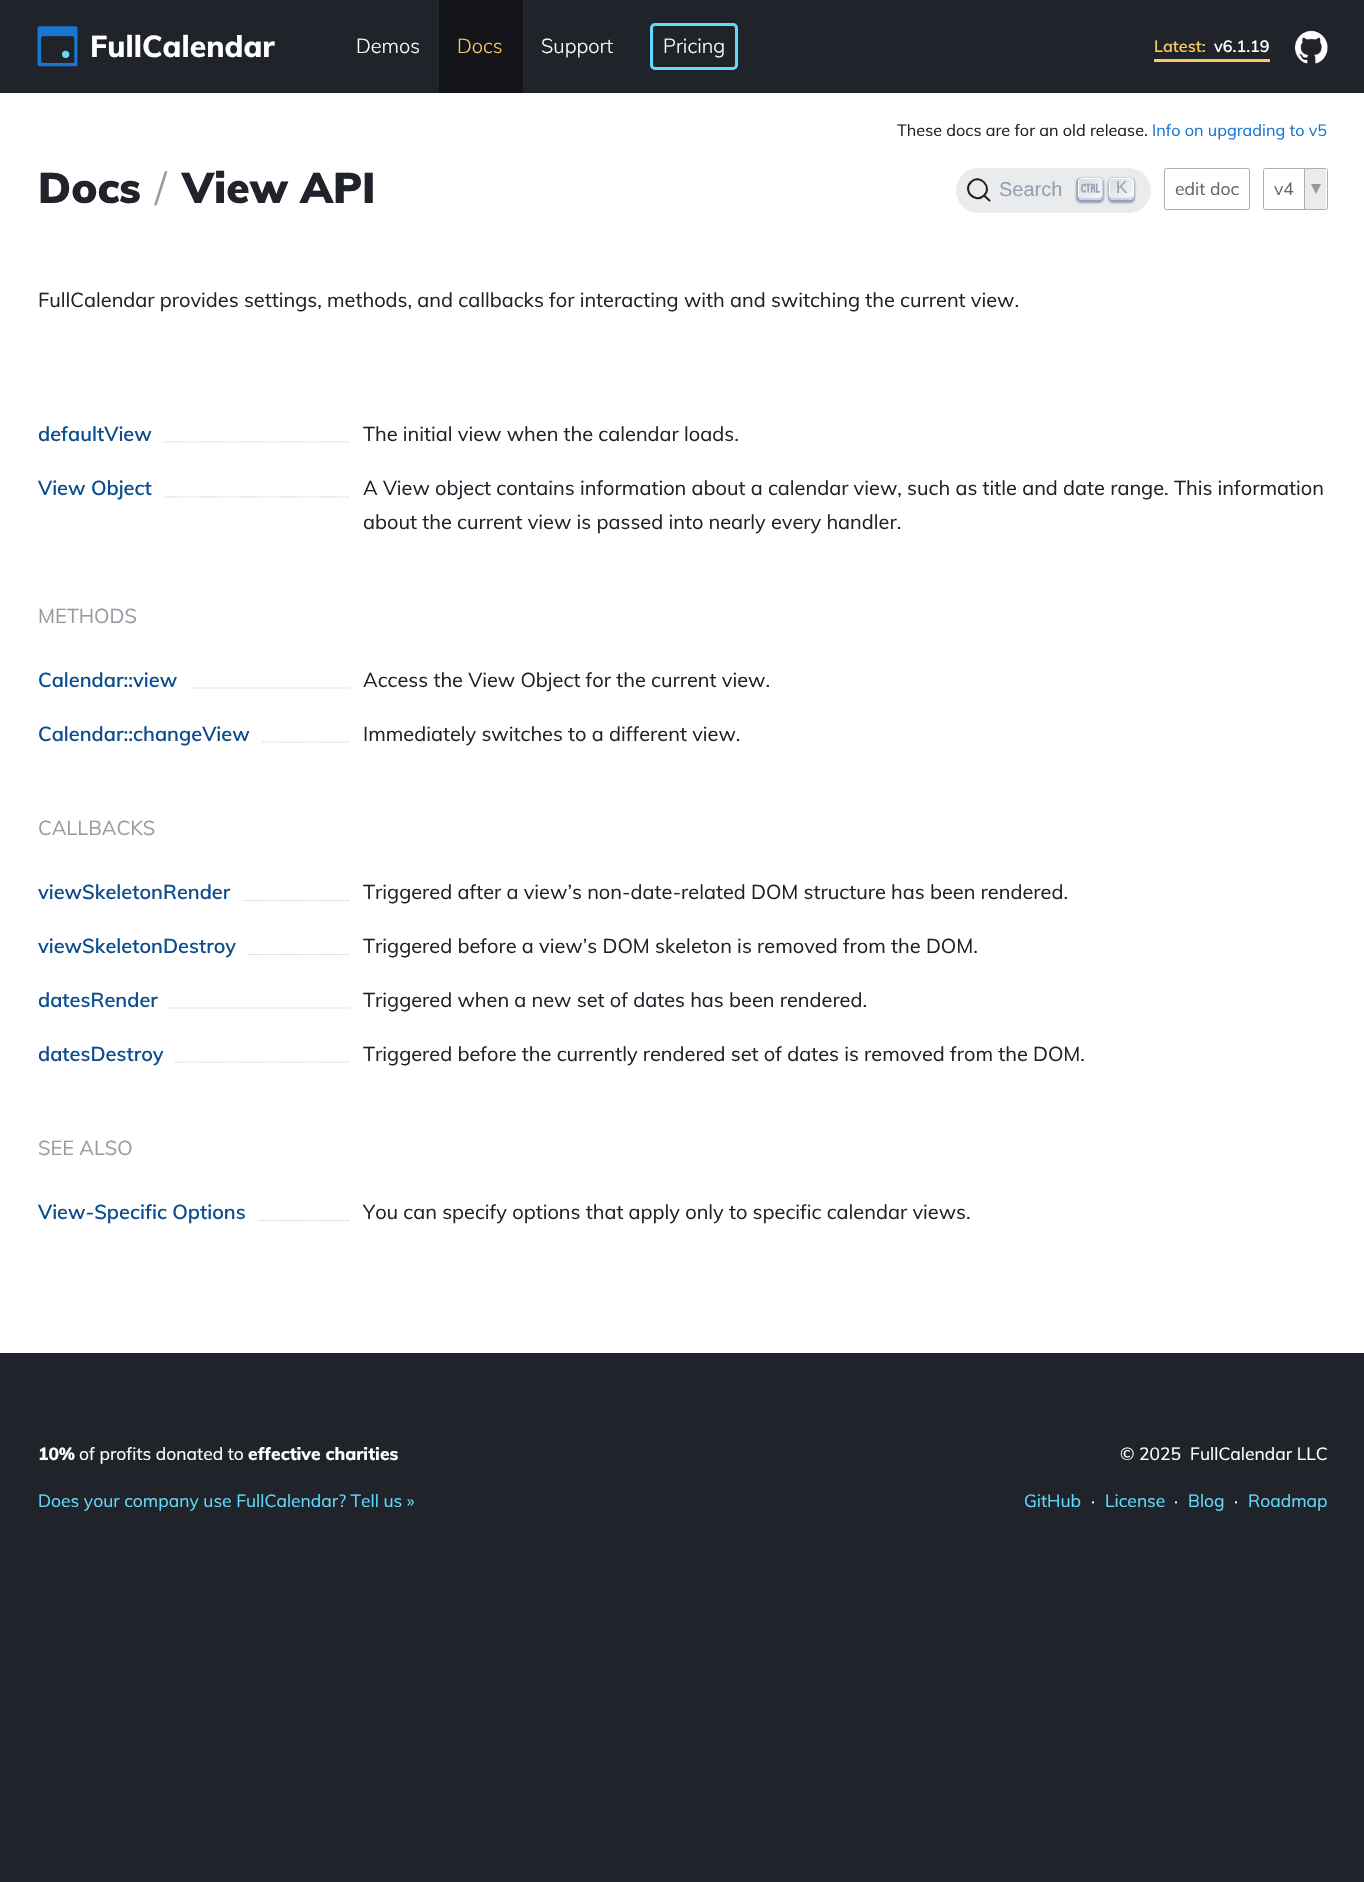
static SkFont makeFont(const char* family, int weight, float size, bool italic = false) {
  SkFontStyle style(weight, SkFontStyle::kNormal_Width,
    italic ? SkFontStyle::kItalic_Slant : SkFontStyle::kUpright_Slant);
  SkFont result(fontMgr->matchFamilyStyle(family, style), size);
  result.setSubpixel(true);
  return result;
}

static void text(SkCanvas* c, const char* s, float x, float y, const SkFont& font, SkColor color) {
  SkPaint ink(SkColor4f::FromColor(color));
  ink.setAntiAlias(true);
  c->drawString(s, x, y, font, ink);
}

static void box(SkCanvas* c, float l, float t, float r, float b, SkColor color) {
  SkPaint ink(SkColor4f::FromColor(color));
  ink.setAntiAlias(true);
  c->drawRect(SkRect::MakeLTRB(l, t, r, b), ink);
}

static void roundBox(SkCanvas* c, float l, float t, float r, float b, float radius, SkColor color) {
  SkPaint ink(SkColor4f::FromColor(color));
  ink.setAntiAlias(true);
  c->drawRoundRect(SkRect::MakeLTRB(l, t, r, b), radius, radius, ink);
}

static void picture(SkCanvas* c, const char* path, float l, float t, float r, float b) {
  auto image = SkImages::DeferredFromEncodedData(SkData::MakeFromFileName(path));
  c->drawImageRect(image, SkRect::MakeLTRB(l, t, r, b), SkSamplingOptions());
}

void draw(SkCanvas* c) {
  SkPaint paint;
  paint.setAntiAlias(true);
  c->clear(0xffffffff);
  box(c, 0, 0, 1364, 93, 0xff20232a);
  picture(c, "img_01.png", 37, 26, 78, 67);
  SkFont face1 = makeFont("Muli", 800, 30);
  text(c, "FullCalendar", 90, 57, face1, 0xffffffff);
  SkFont face2 = makeFont("Muli", 300, 20);
  text(c, "Demos", 356, 53, face2, 0xffffffff);
  box(c, 439, 0, 523, 93, 0xff121419);
  text(c, "Docs", 457, 53, face2, 0xfffac863);
  text(c, "Support", 541, 53, face2, 0xffffffff);
  paint.setStyle(SkPaint::kStroke_Style);
  paint.setStrokeWidth(3);
  paint.setColor(0xff61dafb);
  c->drawRoundRect(SkRect::MakeLTRB(651.5f, 24.5f, 736.5f, 68.5f), 3.5f, 3.5f, paint);
  text(c, "Pricing", 663, 53, face2, 0xffffffff);
  SkFont face3 = makeFont("Muli", 600, 16.25f);
  text(c, "Latest:", 1154, 52, face3, 0xfffac863);
  box(c, 1154, 59, 1270, 62, 0xfffac863);
  text(c, "v6.1.19", 1214, 52, face3, 0xffffffff);
  picture(c, "img_02.png", 1295, 30, 1328, 64);
  SkFont face4 = makeFont("Muli", 900, 42.5f);
  text(c, "Docs", 38, 203, face4, 0xff20232a);
  SkFont face5 = makeFont("Muli", 300, 42.5f);
  text(c, "/", 155, 203, face5, 0xff989ba2);
  text(c, "View API", 182, 203, face4, 0xff20232a);
  SkFont face6 = makeFont("Muli", 400, 16.25f);
  text(c, "These docs are for an old release.", 897, 136, face6, 0xff20232a);
  text(c, "Info on upgrading to v5", 1152, 136, face6, 0xff1976d2);
  roundBox(c, 956, 168, 1151, 213, 22.5f, 0xffeaebec);
  paint.setStrokeWidth(2);
  paint.setStrokeCap(SkPaint::kRound_Cap);
  paint.setStrokeJoin(SkPaint::kRound_Join);
  paint.setColor(0xff1c1e21);
  c->drawPath(SkPathBuilder().moveTo(984, 195.5f).lineTo(989.5f, 200.5f).lineTo(984, 195.5f).cubicTo(975.5f, 204, 962, 191, 971, 182).cubicTo(979.5f, 173.5f, 993, 187, 984, 195.5f).close().detach(), paint);
  SkFont face7 = makeFont("Liberation Sans", 400, 20);
  text(c, "Search", 999, 196, face7, 0xff969faf);
  paint.setStyle(SkPaint::kFill_Style);
  paint.setColor(0x661e235a);
  paint.setMaskFilter(SkMaskFilter::MakeBlur(kNormal_SkBlurStyle, 1));
  c->drawRoundRect(SkRect::MakeLTRB(1076, 178, 1104, 203), 5, 5, paint);
  paint.setMaskFilter(nullptr);
  {
    const SkColor colors[] = {0xffd5dbe4, 0xfff8f8f8};
    const float stops[] = {0, 1};
    const SkPoint ends[] = {{1078, 177}, {1102, 201}};
    paint.setShader(SkGradientShader::MakeLinear(ends, colors, stops, 2, SkTileMode::kClamp));
    paint.setAlpha(255);
  }
  c->drawRoundRect(SkRect::MakeLTRB(1078.5f, 178.5f, 1102.5f, 199.5f), 3.5f, 3.5f, paint);
  paint.setStyle(SkPaint::kStroke_Style);
  paint.setStrokeWidth(1);
  paint.setStrokeCap(SkPaint::kButt_Cap);
  paint.setStrokeJoin(SkPaint::kMiter_Join);
  paint.setShader(nullptr);
  paint.setColor(0xffffffff);
  c->drawRoundRect(SkRect::MakeLTRB(1078.5f, 178.5f, 1102.5f, 199.5f), 3.5f, 3.5f, paint);
  paint.setStyle(SkPaint::kFill_Style);
  paint.setColor(0xffcdcde6);
  c->drawPath(SkPathBuilder().moveTo(1102, 179.5f).lineTo(1102, 186.5f).lineTo(1102, 193.5f).lineTo(1101.5f, 196).cubicTo(1100, 199, 1091.5f, 198, 1088.5f, 198).lineTo(1083.5f, 198).cubicTo(1081, 198, 1079, 198, 1078, 195.5f).cubicTo(1078, 200, 1081, 200, 1085, 200).lineTo(1090.5f, 200).cubicTo(1103, 200, 1103, 201.5f, 1103, 189).cubicTo(1103, 186.5f, 1104, 181.5f, 1102, 179.5f).close().detach(), paint);
  picture(c, "img_03.png", 1081, 183, 1100, 193);
  paint.setColor(0x661e235a);
  paint.setMaskFilter(SkMaskFilter::MakeBlur(kNormal_SkBlurStyle, 1));
  c->drawRoundRect(SkRect::MakeLTRB(1108, 178, 1135, 203), 5, 5, paint);
  paint.setMaskFilter(nullptr);
  {
    const SkColor colors[] = {0xffd5dbe4, 0xfff8f8f8};
    const float stops[] = {0, 1};
    const SkPoint ends[] = {{1109, 177}, {1133, 201}};
    paint.setShader(SkGradientShader::MakeLinear(ends, colors, stops, 2, SkTileMode::kClamp));
    paint.setAlpha(255);
  }
  c->drawRoundRect(SkRect::MakeLTRB(1109.5f, 178.5f, 1133.5f, 199.5f), 3.5f, 3.5f, paint);
  paint.setStyle(SkPaint::kStroke_Style);
  paint.setShader(nullptr);
  paint.setColor(0xffffffff);
  c->drawRoundRect(SkRect::MakeLTRB(1109.5f, 178.5f, 1133.5f, 199.5f), 3.5f, 3.5f, paint);
  paint.setStyle(SkPaint::kFill_Style);
  paint.setColor(0xffcdcde6);
  c->drawPath(SkPathBuilder().moveTo(1134, 194.5f).cubicTo(1133.5f, 197, 1132, 198, 1127, 198).lineTo(1112, 198).cubicTo(1110.5f, 197.5f, 1109.5f, 196.5f, 1109, 195.5f).cubicTo(1109, 200, 1112, 200, 1116, 200).lineTo(1127, 200).cubicTo(1132, 200, 1134, 199.5f, 1134, 194.5f).close().detach(), paint);
  SkFont face8 = makeFont("Liberation Sans", 400, 17);
  text(c, "K", 1116, 193, face8, 0xff969faf);
  paint.setStyle(SkPaint::kStroke_Style);
  paint.setColor(0xffadaeaf);
  c->drawRoundRect(SkRect::MakeLTRB(1164.5f, 168.5f, 1249.5f, 209.5f), 2, 2, paint);
  SkFont face9 = makeFont("Muli", 400, 17.5f);
  text(c, "edit doc", 1175, 195, face9, 0xff656667);
  c->drawRoundRect(SkRect::MakeLTRB(1263.5f, 168.5f, 1327.5f, 209.5f), 2, 2, paint);
  text(c, "v4", 1274, 195, face9, 0xff656667);
  paint.setStyle(SkPaint::kFill_Style);
  paint.setColor(0xffeaebec);
  c->drawPath(SkPathBuilder().moveTo(1304, 169).lineTo(1323.5f, 169).cubicTo(1325, 169, 1326, 170, 1326, 171.5f).lineTo(1326, 206.5f).cubicTo(1326, 208, 1325, 209, 1323.5f, 209).lineTo(1304, 209).close().detach(), paint);
  box(c, 1304, 169, 1305, 209, 0xffadaeaf);
  paint.setColor(0xff989999);
  c->drawPath(SkPathBuilder().moveTo(1311, 184).lineTo(1321, 184).lineTo(1316, 194).close().detach(), paint);
  SkFont face10 = makeFont("Muli", 400, 20);
  text(c, "FullCalendar provides settings, methods, and callbacks for interacting with and switching the current view.", 38, 307, face10, 0xff20232a);
  paint.setStyle(SkPaint::kStroke_Style);
  paint.setStrokeWidth(1.2f);
  paint.setColor(0xffc8c9cc);
  paint.setPathEffect(SkDashPathEffect::Make({{1.25f, 1.25f}}, 0));
  c->drawPath(SkPathBuilder().moveTo(37.5f, 442).lineTo(1327.5f, 442).detach(), paint);
  paint.setPathEffect(nullptr);
  box(c, 38, 441, 164, 443, 0xffffffff);
  SkFont face11 = makeFont("Muli", 600, 20);
  text(c, "defaultView", 38, 441, face11, 0xff0b4d8e);
  box(c, 350, 441, 1327, 443, 0xffffffff);
  text(c, "The initial view when the calendar loads.", 363, 441, face10, 0xff20232a);
  paint.setPathEffect(SkDashPathEffect::Make({{1.25f, 1.25f}}, 0));
  c->drawPath(SkPathBuilder().moveTo(37.5f, 497).lineTo(1327.5f, 497).detach(), paint);
  paint.setPathEffect(nullptr);
  box(c, 38, 496, 164, 498, 0xffffffff);
  text(c, "View Object", 38, 495, face11, 0xff0b4d8e);
  box(c, 350, 496, 1327, 498, 0xffffffff);
  text(c, "A View object contains information about a calendar view, such as title and date range. This information", 363, 495, face10, 0xff20232a);
  text(c, "about the current view is passed into nearly every handler.", 363, 529, face10, 0xff20232a);
  text(c, "METHODS", 38, 623, face10, 0xff989ba2);
  paint.setPathEffect(SkDashPathEffect::Make({{1.25f, 1.25f}}, 0));
  c->drawPath(SkPathBuilder().moveTo(37.5f, 688).lineTo(1327.5f, 688).detach(), paint);
  paint.setPathEffect(nullptr);
  box(c, 38, 687, 189, 689, 0xffffffff);
  text(c, "Calendar::view", 38, 687, face11, 0xff0b4d8e);
  box(c, 350, 687, 1327, 689, 0xffffffff);
  text(c, "Access the View Object for the current view.", 363, 687, face10, 0xff20232a);
  paint.setPathEffect(SkDashPathEffect::Make({{1.25f, 1.25f}}, 0));
  c->drawPath(SkPathBuilder().moveTo(37.5f, 742).lineTo(1327.5f, 742).detach(), paint);
  paint.setPathEffect(nullptr);
  box(c, 38, 741, 261, 743, 0xffffffff);
  text(c, "Calendar::changeView", 38, 741, face11, 0xff0b4d8e);
  box(c, 350, 741, 1327, 743, 0xffffffff);
  text(c, "Immediately switches to a different view.", 363, 741, face10, 0xff20232a);
  text(c, "CALLBACKS", 38, 835, face10, 0xff989ba2);
  paint.setPathEffect(SkDashPathEffect::Make({{1.25f, 1.25f}}, 0));
  c->drawPath(SkPathBuilder().moveTo(37.5f, 900.5f).lineTo(1327.5f, 900.5f).detach(), paint);
  paint.setPathEffect(nullptr);
  box(c, 38, 899, 243, 902, 0xffffffff);
  text(c, "viewSkeletonRender", 38, 899, face11, 0xff0b4d8e);
  box(c, 350, 899, 1327, 902, 0xffffffff);
  text(c, "Triggered after a view’s non-date-related DOM structure has been rendered.", 363, 899, face10, 0xff20232a);
  paint.setPathEffect(SkDashPathEffect::Make({{1.25f, 1.25f}}, 0));
  c->drawPath(SkPathBuilder().moveTo(37.5f, 954.5f).lineTo(1327.5f, 954.5f).detach(), paint);
  paint.setPathEffect(nullptr);
  box(c, 38, 953, 248, 956, 0xffffffff);
  text(c, "viewSkeletonDestroy", 38, 953, face11, 0xff0b4d8e);
  box(c, 350, 953, 1327, 956, 0xffffffff);
  text(c, "Triggered before a view’s DOM skeleton is removed from the DOM.", 363, 953, face10, 0xff20232a);
  paint.setPathEffect(SkDashPathEffect::Make({{1.25f, 1.25f}}, 0));
  c->drawPath(SkPathBuilder().moveTo(37.5f, 1008).lineTo(1327.5f, 1008).detach(), paint);
  paint.setPathEffect(nullptr);
  box(c, 38, 1007, 169, 1009, 0xffffffff);
  text(c, "datesRender", 38, 1007, face11, 0xff0b4d8e);
  box(c, 350, 1007, 1327, 1009, 0xffffffff);
  text(c, "Triggered when a new set of dates has been rendered.", 363, 1007, face10, 0xff20232a);
  paint.setPathEffect(SkDashPathEffect::Make({{1.25f, 1.25f}}, 0));
  c->drawPath(SkPathBuilder().moveTo(37.5f, 1062).lineTo(1327.5f, 1062).detach(), paint);
  paint.setPathEffect(nullptr);
  box(c, 38, 1061, 174, 1063, 0xffffffff);
  text(c, "datesDestroy", 38, 1061, face11, 0xff0b4d8e);
  box(c, 350, 1061, 1327, 1063, 0xffffffff);
  text(c, "Triggered before the currently rendered set of dates is removed from the DOM.", 363, 1061, face10, 0xff20232a);
  text(c, "SEE ALSO", 38, 1155, face10, 0xff989ba2);
  paint.setPathEffect(SkDashPathEffect::Make({{1.25f, 1.25f}}, 0));
  c->drawPath(SkPathBuilder().moveTo(37.5f, 1220.5f).lineTo(1327.5f, 1220.5f).detach(), paint);
  paint.setPathEffect(nullptr);
  box(c, 38, 1219, 258, 1222, 0xffffffff);
  text(c, "View-Specific Options", 38, 1219, face11, 0xff0b4d8e);
  box(c, 350, 1219, 1327, 1222, 0xffffffff);
  text(c, "You can specify options that apply only to specific calendar views.", 363, 1219, face10, 0xff20232a);
  box(c, 0, 1353, 1364, 1882, 0xff20232a);
  SkFont face12 = makeFont("Muli", 800, 17.5f);
  text(c, "10%", 38, 1460, face12, 0xffffffff);
  text(c, "of profits donated to", 79, 1460, face9, 0xffffffff);
  text(c, "effective charities", 248, 1460, face12, 0xffffffff);
  text(c, "Does your company use FullCalendar? Tell us »", 38, 1507, face9, 0xff61dafb);
  text(c, "© 2025  FullCalendar LLC", 1120, 1460, face9, 0xffffffff);
  text(c, "GitHub", 1024, 1507, face9, 0xff61dafb);
  text(c, "·", 1091, 1507, face9, 0xffffffff);
  text(c, "License", 1105, 1507, face9, 0xff61dafb);
  text(c, "·", 1174, 1507, face9, 0xffffffff);
  text(c, "Blog", 1188, 1507, face9, 0xff61dafb);
  text(c, "·", 1234, 1507, face9, 0xffffffff);
  text(c, "Roadmap", 1248, 1507, face9, 0xff61dafb);
}
